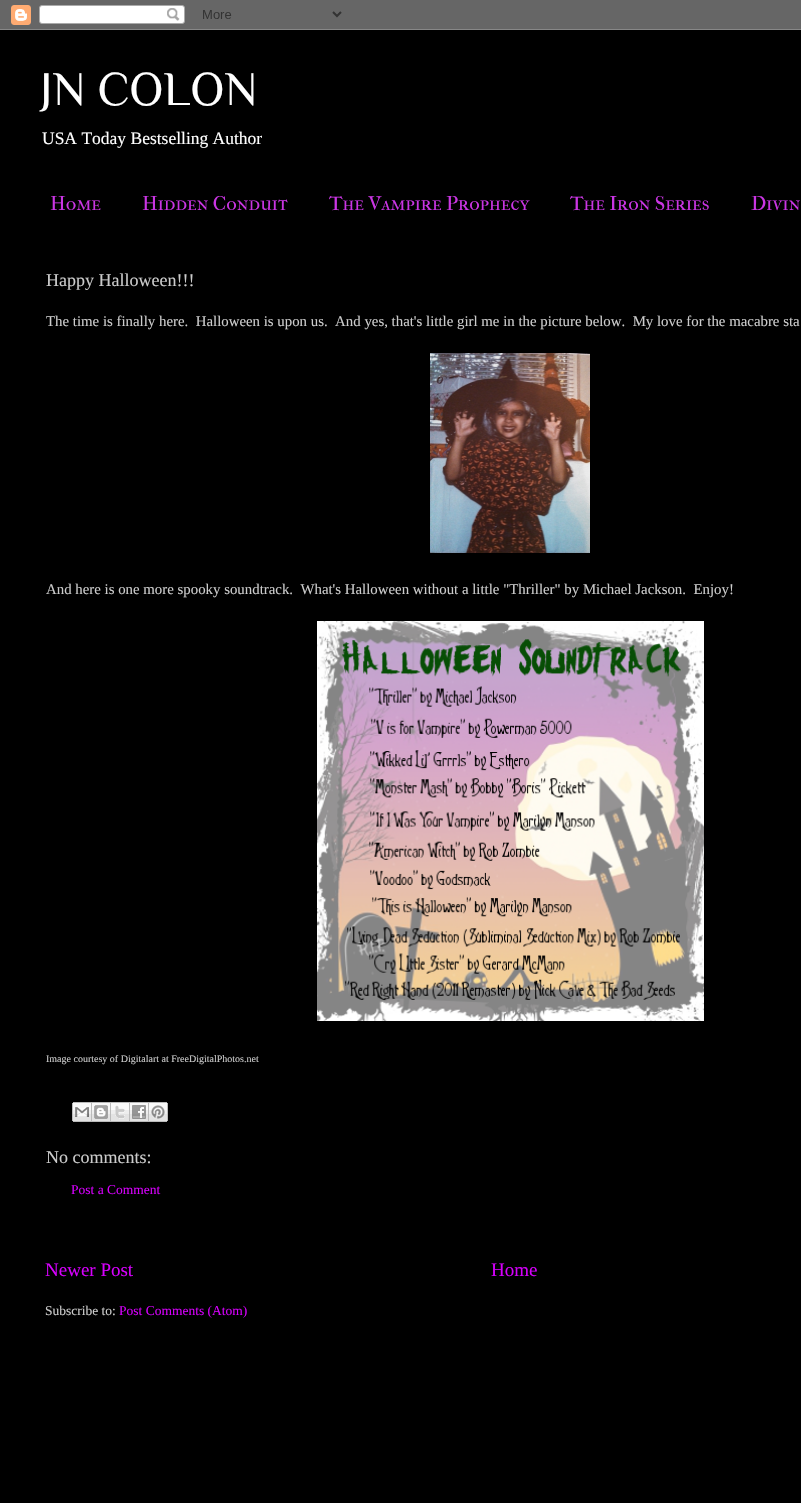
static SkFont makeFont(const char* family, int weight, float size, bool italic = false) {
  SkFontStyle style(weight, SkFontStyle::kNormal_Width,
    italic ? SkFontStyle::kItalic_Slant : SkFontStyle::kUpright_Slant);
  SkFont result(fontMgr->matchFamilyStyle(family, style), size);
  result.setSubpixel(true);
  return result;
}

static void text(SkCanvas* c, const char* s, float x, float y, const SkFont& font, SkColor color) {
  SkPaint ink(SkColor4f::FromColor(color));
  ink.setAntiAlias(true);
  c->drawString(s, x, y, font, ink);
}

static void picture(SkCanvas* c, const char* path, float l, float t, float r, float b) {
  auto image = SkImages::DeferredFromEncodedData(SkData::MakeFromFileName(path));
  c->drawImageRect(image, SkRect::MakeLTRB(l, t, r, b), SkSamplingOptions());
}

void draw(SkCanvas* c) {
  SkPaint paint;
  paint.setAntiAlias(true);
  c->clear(0xff000000);
  picture(c, "img_01.png", 0, 0, 801, 30);
  SkFont face1 = makeFont("Philosopher", 400, 48);
  text(c, "JN COLON", 40, 105, face1, 0xffffffff);
  SkFont face2 = makeFont("Liberation Serif", 400, 17.5f);
  text(c, "USA Today Bestselling Author", 42, 144, face2, 0xffffffff);
  SkFont face3 = makeFont("IM FELL French Canon SC", 400, 20);
  text(c, "Home", 50, 210, face3, 0xffca35e3);
  text(c, "Hidden Conduit", 142, 210, face3, 0xffca35e3);
  text(c, "The Vampire Prophecy", 329, 210, face3, 0xffca35e3);
  text(c, "The Iron Series", 570, 210, face3, 0xffca35e3);
  text(c, "Divin", 751, 210, face3, 0xffca35e3);
  SkFont face4 = makeFont("Liberation Serif", 400, 18);
  text(c, "Happy Halloween!!!", 46, 286, face4, 0xffcbcbcb);
  SkFont face5 = makeFont("Liberation Serif", 400, 14.85f);
  text(c, "The time is finally here.  Halloween is upon us.  And yes, that's little girl me in the picture below.  My love for the macabre sta", 46, 326, face5, 0xffcbcbcb);
  picture(c, "img_02.png", 430, 353, 590, 553);
  text(c, "And here is one more spooky soundtrack.  What's Halloween without a little \"Thriller\" by Michael Jackson.  Enjoy!", 46, 594, face5, 0xffcbcbcb);
  picture(c, "img_03.png", 317, 621, 704, 1021);
  SkFont face6 = makeFont("Liberation Serif", 400, 10);
  text(c, "Image courtesy of Digitalart at FreeDigitalPhotos.net", 46, 1062, face6, 0xffcbcbcb);
  picture(c, "img_04.png", 72, 1102, 92, 1122);
  picture(c, "img_05.png", 92, 1102, 111, 1122);
  picture(c, "img_06.png", 111, 1102, 130, 1122);
  picture(c, "img_07.png", 130, 1102, 149, 1122);
  picture(c, "img_08.png", 149, 1102, 168, 1122);
  text(c, "No comments:", 46, 1163, face4, 0xffcbcbcb);
  SkFont face7 = makeFont("Liberation Serif", 400, 13.5f);
  text(c, "Post a Comment", 71, 1194, face7, 0xffd500fb);
  SkFont face8 = makeFont("Liberation Serif", 400, 19);
  text(c, "Newer Post", 45, 1276, face8, 0xffd500fb);
  text(c, "Home", 491, 1276, face8, 0xffd500fb);
  text(c, "Subscribe to:", 45, 1315, face7, 0xffcbcbcb);
  text(c, "Post Comments (Atom)", 119, 1315, face7, 0xffd500fb);
}
